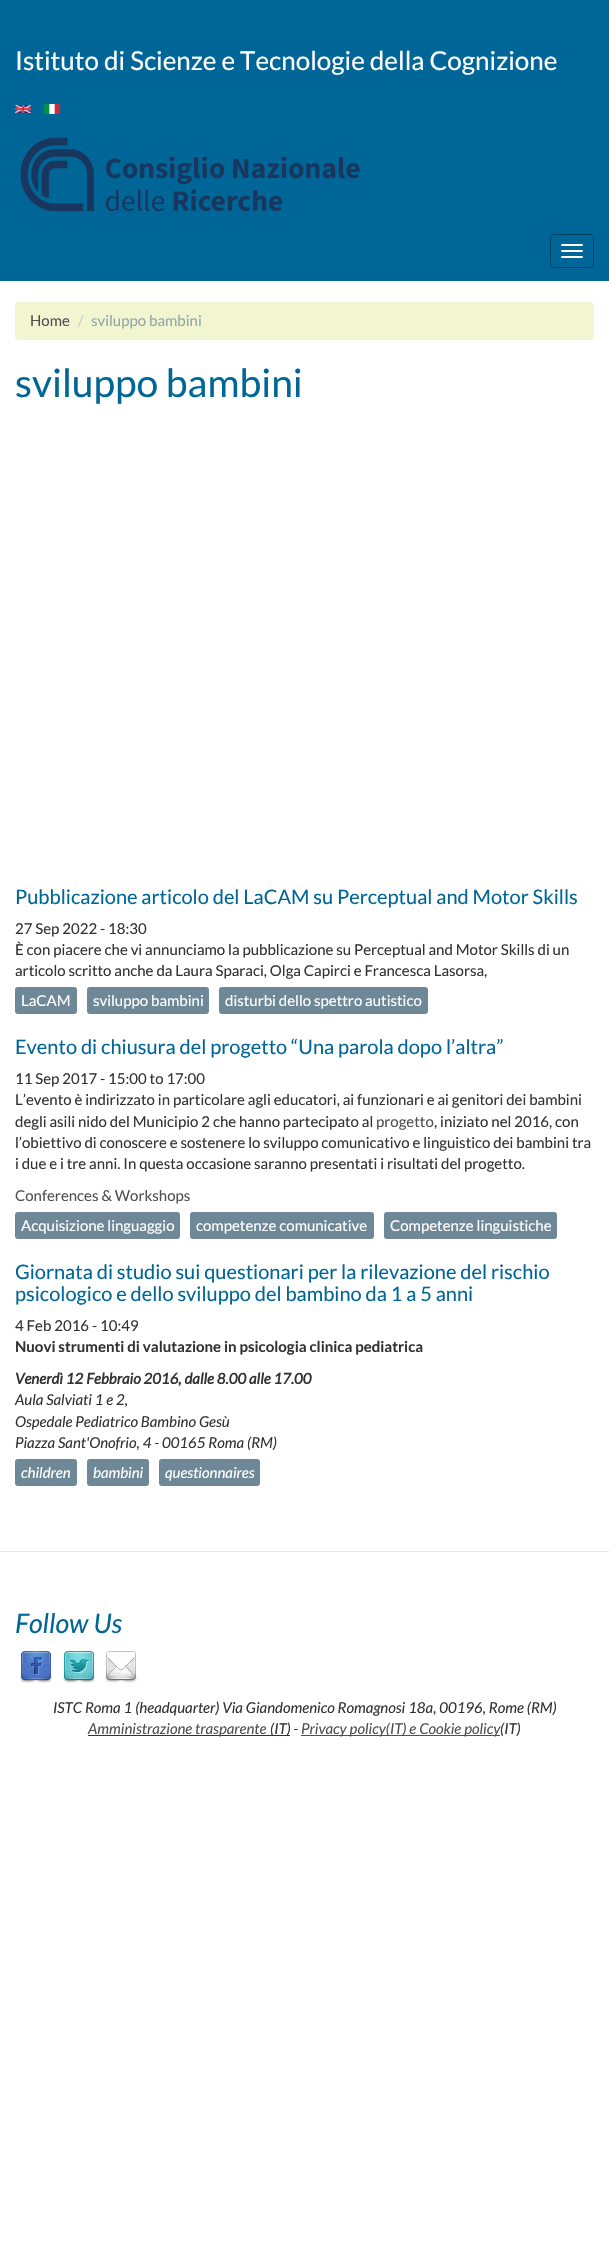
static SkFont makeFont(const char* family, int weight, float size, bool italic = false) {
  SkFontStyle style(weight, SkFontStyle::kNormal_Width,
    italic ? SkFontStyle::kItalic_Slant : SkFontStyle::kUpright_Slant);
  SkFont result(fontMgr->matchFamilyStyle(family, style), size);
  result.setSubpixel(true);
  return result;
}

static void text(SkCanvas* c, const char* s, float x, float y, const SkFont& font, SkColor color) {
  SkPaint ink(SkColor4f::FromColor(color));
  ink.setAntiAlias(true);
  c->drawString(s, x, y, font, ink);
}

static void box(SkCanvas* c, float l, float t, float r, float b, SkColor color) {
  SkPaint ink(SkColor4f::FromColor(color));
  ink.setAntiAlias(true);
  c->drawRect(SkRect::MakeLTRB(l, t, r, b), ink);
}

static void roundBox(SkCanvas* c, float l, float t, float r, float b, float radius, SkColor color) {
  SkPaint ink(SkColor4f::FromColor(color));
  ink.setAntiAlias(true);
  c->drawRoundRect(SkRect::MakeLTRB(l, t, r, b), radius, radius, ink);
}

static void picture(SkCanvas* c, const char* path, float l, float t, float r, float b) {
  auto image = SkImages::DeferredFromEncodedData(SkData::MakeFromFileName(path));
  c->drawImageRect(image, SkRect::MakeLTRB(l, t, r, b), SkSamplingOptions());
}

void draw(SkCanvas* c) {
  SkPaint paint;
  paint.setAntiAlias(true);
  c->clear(0xffffffff);
  box(c, 0, 0, 609, 281, 0xff006697);
  SkFont face1 = makeFont("Lato", 400, 26);
  text(c, "Istituto di Scienze e Tecnologie della Cognizione", 15, 70, face1, 0xffffffff);
  picture(c, "img_01.png", 15, 105, 31, 113);
  picture(c, "img_02.png", 44, 104, 60, 114);
  picture(c, "img_03.png", 20, 137, 360, 212);
  paint.setStyle(SkPaint::kStroke_Style);
  paint.setStrokeWidth(1);
  paint.setColor(0xff004464);
  c->drawRoundRect(SkRect::MakeLTRB(550.5f, 234.5f, 593.5f, 267.5f), 3.5f, 3.5f, paint);
  roundBox(c, 561, 244, 583, 246, 1, 0xffffffff);
  roundBox(c, 561, 250, 583, 252, 1, 0xffffffff);
  roundBox(c, 561, 256, 583, 258, 1, 0xffffffff);
  roundBox(c, 15, 302, 594, 340, 4, 0xfff2f6d0);
  SkFont face2 = makeFont("Lato", 400, 15);
  text(c, "Home", 30, 326, face2, 0xff50514f);
  text(c, "/", 78, 326, face2, 0xffcccccc);
  text(c, "sviluppo bambini", 91, 326, face2, 0xff95a5a6);
  SkFont face3 = makeFont("Lato", 400, 39);
  text(c, "sviluppo bambini", 15, 397, face3, 0xff006697);
  SkFont face4 = makeFont("Lato", 400, 20);
  text(c, "Pubblicazione articolo del LaCAM su Perceptual and Motor Skills", 15, 904, face4, 0xff006697);
  text(c, "27 Sep 2022 - 18:30", 15, 934, face2, 0xff333333);
  text(c, "È con piacere che vi annunciamo la pubblicazione su Perceptual and Motor Skills di un", 15, 955, face2, 0xff333333);
  text(c, "articolo scritto anche da Laura Sparaci, Olga Capirci e Francesca Lasorsa,", 15, 976, face2, 0xff333333);
  roundBox(c, 15, 987, 77, 1014, 3, 0xff6e8898);
  text(c, "LaCAM", 21, 1006, face2, 0xffffffff);
  roundBox(c, 87, 987, 209, 1014, 3, 0xff6e8898);
  text(c, "sviluppo bambini", 93, 1006, face2, 0xffffffff);
  roundBox(c, 219, 987, 428, 1014, 3, 0xff6e8898);
  text(c, "disturbi dello spettro autistico", 225, 1006, face2, 0xffffffff);
  text(c, "Evento di chiusura del progetto “Una parola dopo l’altra”", 15, 1054, face4, 0xff006697);
  text(c, "11 Sep 2017 - 15:00 to 17:00", 15, 1084, face2, 0xff333333);
  text(c, "L’evento è indirizzato in particolare agli educatori, ai funzionari e ai genitori dei bambini", 15, 1105, face2, 0xff333333);
  text(c, "degli asili nido del Municipio 2 che hanno partecipato al", 15, 1127, face2, 0xff333333);
  text(c, "progetto", 376, 1127, face2, 0xff50514f);
  text(c, ", iniziato nel 2016, con", 434, 1127, face2, 0xff333333);
  text(c, "l’obiettivo di conoscere e sostenere lo sviluppo comunicativo e linguistico dei bambini tra", 15, 1148, face2, 0xff333333);
  text(c, "i due e i tre anni. In questa occasione saranno presentati i risultati del progetto.", 15, 1169, face2, 0xff333333);
  text(c, "Conferences & Workshops", 15, 1201, face2, 0xff50514f);
  roundBox(c, 15, 1212, 180, 1239, 3, 0xff6e8898);
  text(c, "Acquisizione linguaggio", 21, 1231, face2, 0xffffffff);
  roundBox(c, 190, 1212, 374, 1239, 3, 0xff6e8898);
  text(c, "competenze comunicative", 196, 1231, face2, 0xffffffff);
  roundBox(c, 384, 1212, 557, 1239, 3, 0xff6e8898);
  text(c, "Competenze linguistiche", 390, 1231, face2, 0xffffffff);
  text(c, "Giornata di studio sui questionari per la rilevazione del rischio", 15, 1279, face4, 0xff006697);
  text(c, "psicologico e dello sviluppo del bambino da 1 a 5 anni", 15, 1301, face4, 0xff006697);
  text(c, "4 Feb 2016 - 10:49", 15, 1331, face2, 0xff333333);
  SkFont face5 = makeFont("Lato", 700, 15);
  text(c, "Nuovi strumenti di valutazione in psicologia clinica pediatrica", 15, 1352, face5, 0xff333333);
  SkFont face6 = makeFont("Lato", 700, 15, true);
  text(c, "Venerdì 12 Febbraio 2016, dalle 8.00 alle 17.00", 15, 1384, face6, 0xff333333);
  SkFont face7 = makeFont("Lato", 400, 15, true);
  text(c, "Aula Salviati 1 e 2,", 15, 1405, face7, 0xff333333);
  text(c, "Ospedale Pediatrico Bambino Gesù", 15, 1427, face7, 0xff333333);
  text(c, "Piazza Sant'Onofrio, 4 - 00165 Roma (RM)", 15, 1448, face7, 0xff333333);
  roundBox(c, 15, 1459, 77, 1486, 3, 0xff6e8898);
  text(c, "children", 21, 1478, face7, 0xffffffff);
  roundBox(c, 87, 1459, 149, 1486, 3, 0xff6e8898);
  text(c, "bambini", 93, 1478, face7, 0xffffffff);
  roundBox(c, 159, 1459, 260, 1486, 3, 0xff6e8898);
  text(c, "questionnaires", 165, 1478, face7, 0xffffffff);
  box(c, 0, 1551, 609, 1552, 0xffe5e5e5);
  SkFont face8 = makeFont("Lato", 400, 27, true);
  text(c, "Follow Us", 15, 1633, face8, 0xff006697);
  picture(c, "img_04.png", 20, 1651, 52, 1683);
  picture(c, "img_05.png", 63, 1651, 95, 1683);
  picture(c, "img_06.png", 105, 1651, 137, 1683);
  text(c, "ISTC Roma 1 (headquarter) Via Giandomenico Romagnosi 18a, 00196, Rome (RM)", 53, 1713, face7, 0xff333333);
  box(c, 88, 1735, 290, 1736, 0xff333333);
  text(c, "Amministrazione trasparente", 88, 1734, face7, 0xff50514f);
  text(c, "(IT) -", 270, 1734, face7, 0xff333333);
  box(c, 301, 1735, 500, 1736, 0xff50514f);
  text(c, "Privacy policy(IT) e Cookie policy", 301, 1734, face7, 0xff50514f);
  text(c, "(IT)", 500, 1734, face7, 0xff333333);
}
